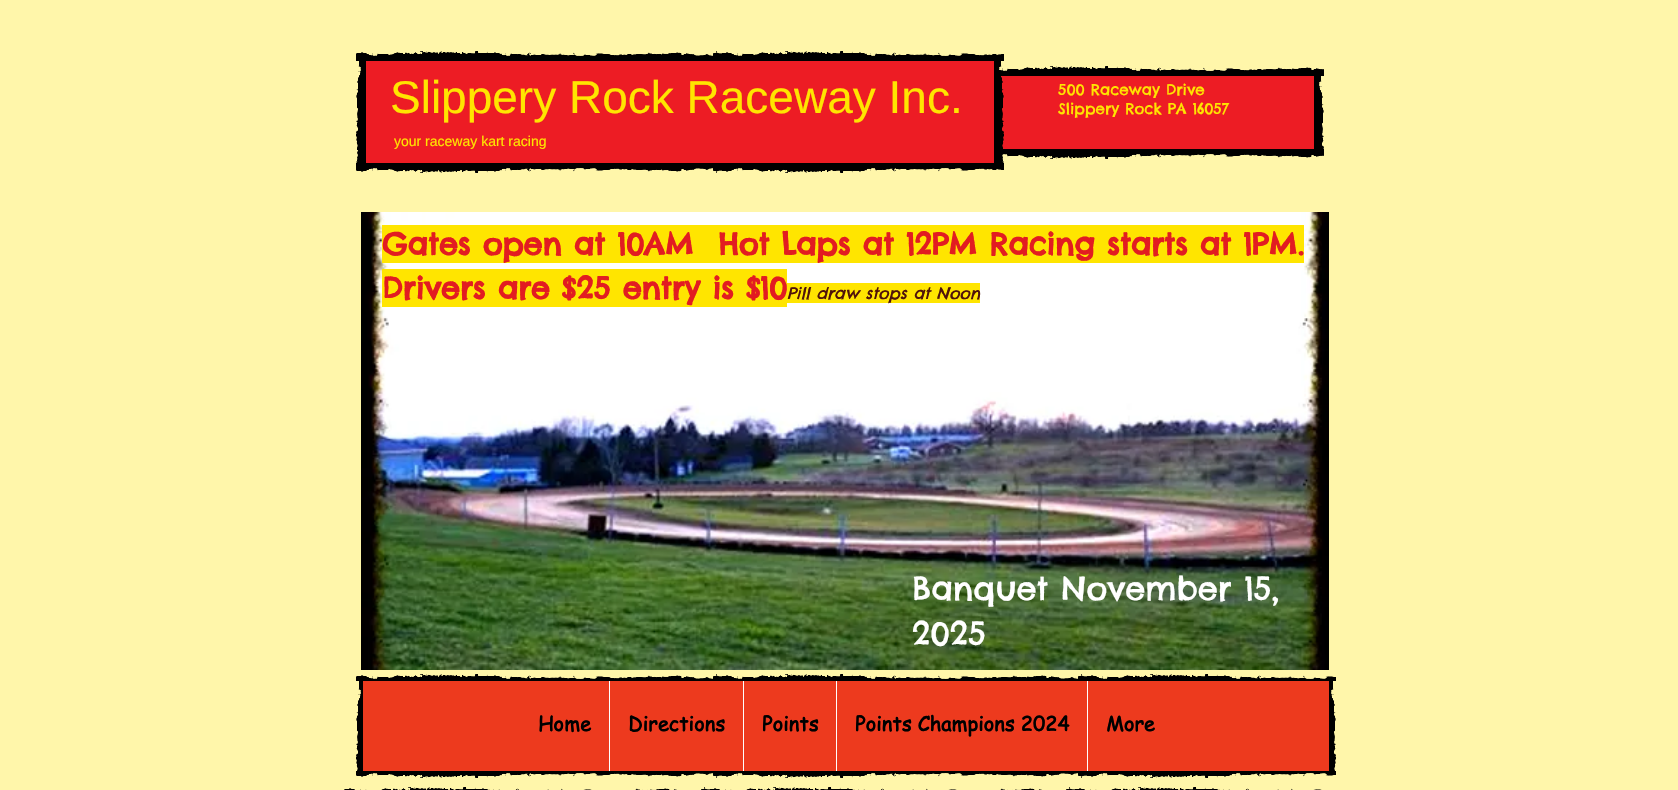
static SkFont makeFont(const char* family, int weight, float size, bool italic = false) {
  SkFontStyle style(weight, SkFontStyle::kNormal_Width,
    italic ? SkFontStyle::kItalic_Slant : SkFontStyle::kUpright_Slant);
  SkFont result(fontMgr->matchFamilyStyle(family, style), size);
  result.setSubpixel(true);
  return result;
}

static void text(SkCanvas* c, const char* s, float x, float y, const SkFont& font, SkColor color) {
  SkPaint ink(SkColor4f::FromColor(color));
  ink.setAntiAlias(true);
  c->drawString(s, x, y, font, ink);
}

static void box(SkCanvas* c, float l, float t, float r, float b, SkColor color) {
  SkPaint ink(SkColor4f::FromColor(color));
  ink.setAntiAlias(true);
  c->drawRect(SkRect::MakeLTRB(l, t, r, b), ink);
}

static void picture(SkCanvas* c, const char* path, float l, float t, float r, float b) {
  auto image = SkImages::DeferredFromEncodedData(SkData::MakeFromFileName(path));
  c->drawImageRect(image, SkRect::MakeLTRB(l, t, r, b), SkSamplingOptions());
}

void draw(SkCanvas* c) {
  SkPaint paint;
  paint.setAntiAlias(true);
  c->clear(0xfffff6aa);
  box(c, 366, 61, 994, 163, 0xffed1c24);
  picture(c, "img_01.png", 356, 51, 1004, 61);
  picture(c, "img_02.png", 356, 163, 1004, 173);
  picture(c, "img_03.png", 356, 61, 366, 163);
  box(c, 1001, 76, 1314, 149, 0xffed1c24);
  picture(c, "img_05.png", 999, 66, 1324, 76);
  picture(c, "img_06.png", 1002, 149, 1324, 159);
  picture(c, "img_04.png", 994, 61, 1004, 163);
  SkFont face1 = makeFont("Liberation Sans", 400, 46);
  text(c, "Slippery Rock Raceway Inc.", 390, 113, face1, 0xffffe500);
  SkFont face2 = makeFont("Liberation Sans", 400, 14);
  text(c, "your raceway kart racing", 394, 146, face2, 0xffffe500);
  SkFont face3 = makeFont("Chelsea Market", 400, 15);
  text(c, "500 Raceway Drive", 1058, 95, face3, 0xffffe500);
  text(c, "Slippery Rock PA 16057", 1058, 114, face3, 0xffffe500);
  picture(c, "img_07.png", 1314, 76, 1324, 149);
  picture(c, "img_08.png", 361, 212, 1329, 670);
  box(c, 382, 225, 1304, 263, 0xffffe500);
  SkFont face4 = makeFont("Chelsea Market", 700, 30);
  text(c, "Gates open at 10AM  Hot Laps at 12PM Racing starts at 1PM.", 382, 255, face4, 0xffe21c21);
  box(c, 382, 269, 787, 307, 0xffffe500);
  text(c, "Drivers are $25 entry is $10", 382, 299, face4, 0xffe21c21);
  box(c, 787, 283, 980, 303, 0xffffe500);
  SkFont face5 = makeFont("Chelsea Market", 400, 16, true);
  text(c, "Pill draw stops at Noon", 787, 299, face5, 0xff4f130a);
  SkFont face6 = makeFont("Chelsea Market", 400, 32);
  text(c, "Banquet November 15,", 912, 600, face6, 0xffffffff);
  text(c, "2025", 912, 645, face6, 0xffffffff);
  picture(c, "img_09.png", 356, 674, 1336, 681);
  picture(c, "img_10.png", 356, 681, 363, 771);
  box(c, 363, 681, 1329, 771, 0xffed3a1e);
  SkFont face7 = makeFont("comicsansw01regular", 700, 20);
  text(c, "Home", 538, 731, face7, 0xff000000);
  box(c, 609, 681, 610, 771, 0xffffffff);
  text(c, "Directions", 628, 731, face7, 0xff000000);
  box(c, 743, 681, 744, 771, 0xffffffff);
  text(c, "Points", 762, 731, face7, 0xff000000);
  box(c, 836, 681, 837, 771, 0xffffffff);
  text(c, "Points Champions 2024", 855, 731, face7, 0xff000000);
  box(c, 1087, 681, 1088, 771, 0xffffffff);
  text(c, "More", 1106, 731, face7, 0xff000000);
  picture(c, "img_11.png", 1329, 681, 1336, 771);
  picture(c, "img_12.png", 356, 771, 1336, 778);
  picture(c, "img_13.png", 344, 787, 1322, 790);
}
